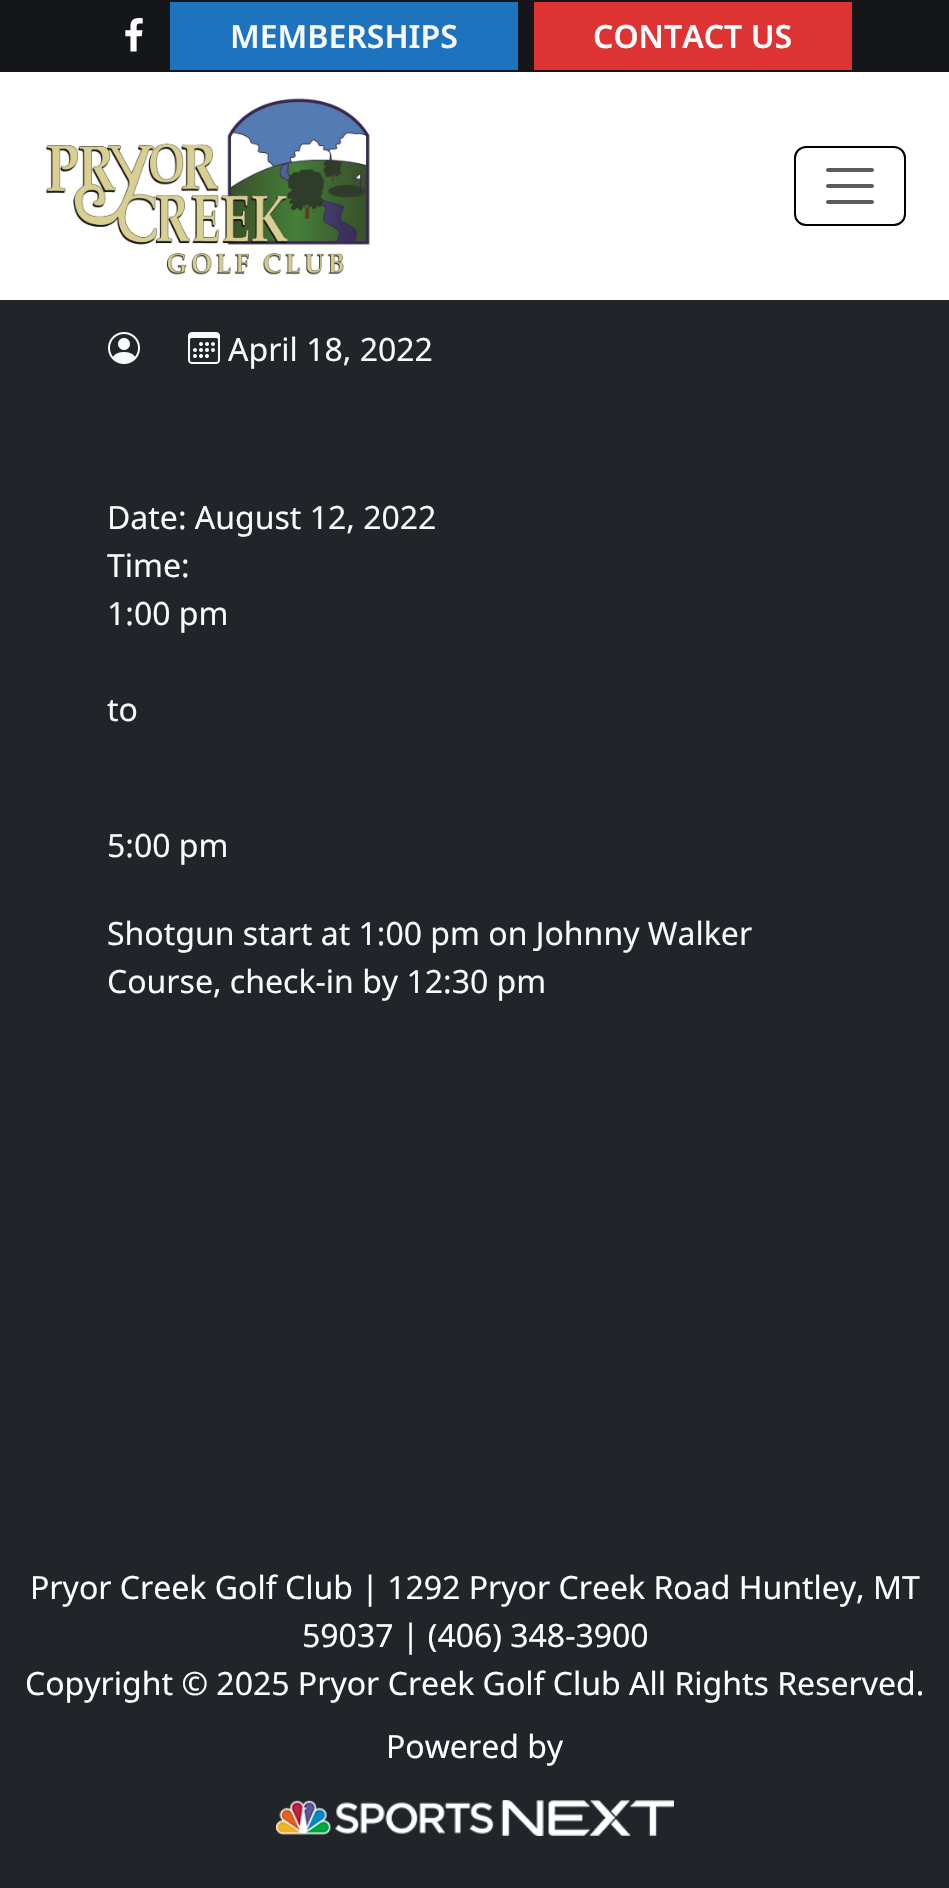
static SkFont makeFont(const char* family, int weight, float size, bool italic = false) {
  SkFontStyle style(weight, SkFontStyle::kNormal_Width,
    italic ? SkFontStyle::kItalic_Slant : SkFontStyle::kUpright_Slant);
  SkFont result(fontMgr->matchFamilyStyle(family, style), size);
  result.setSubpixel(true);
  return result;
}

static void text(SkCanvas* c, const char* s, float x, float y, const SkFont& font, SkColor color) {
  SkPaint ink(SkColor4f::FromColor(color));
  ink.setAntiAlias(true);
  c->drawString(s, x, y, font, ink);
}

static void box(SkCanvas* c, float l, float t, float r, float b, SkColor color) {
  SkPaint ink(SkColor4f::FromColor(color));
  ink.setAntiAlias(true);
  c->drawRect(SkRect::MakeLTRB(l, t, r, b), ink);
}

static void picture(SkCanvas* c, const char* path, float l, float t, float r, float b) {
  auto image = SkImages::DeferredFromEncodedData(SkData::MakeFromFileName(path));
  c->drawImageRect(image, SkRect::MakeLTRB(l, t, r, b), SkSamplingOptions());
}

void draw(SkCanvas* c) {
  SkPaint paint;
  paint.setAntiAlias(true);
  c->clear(0xff212529);
  box(c, 0, 0, 949, 72, 0xff141619);
  picture(c, "img_01.png", 125, 18, 143, 52);
  box(c, 170, 2, 518, 70, 0xff1e73be);
  SkFont face1 = makeFont("Noto Sans", 600, 32);
  text(c, "MEMBERSHIPS", 230, 48, face1, 0xfff8f9fa);
  box(c, 534, 2, 852, 70, 0xffdd3333);
  text(c, "CONTACT US", 593, 48, face1, 0xffffffff);
  box(c, 0, 72, 949, 300, 0xffffffff);
  picture(c, "img_02.png", 45, 98, 370, 275);
  paint.setStyle(SkPaint::kStroke_Style);
  paint.setStrokeWidth(2);
  paint.setColor(0xff000000);
  c->drawRoundRect(SkRect::MakeLTRB(795, 147, 905, 225), 11, 11, paint);
  paint.setStrokeWidth(4);
  paint.setStrokeCap(SkPaint::kRound_Cap);
  paint.setColor(0xff595c5f);
  c->drawPath(SkPathBuilder().moveTo(828, 170).lineTo(872, 170).moveTo(828, 186).lineTo(872, 186).moveTo(828, 202).lineTo(872, 202).detach(), paint);
  picture(c, "img_03.png", 108, 332, 140, 364);
  picture(c, "img_04.png", 188, 332, 220, 364);
  SkFont face2 = makeFont("Noto Sans", 400, 32);
  text(c, "April 18, 2022", 228, 361, face2, 0xfff8f9fa);
  text(c, "Date: August 12, 2022", 107, 529, face2, 0xfff8f9fa);
  text(c, "Time:", 107, 577, face2, 0xfff8f9fa);
  text(c, "1:00 pm", 107, 625, face2, 0xfff8f9fa);
  text(c, "to", 107, 721, face2, 0xfff8f9fa);
  text(c, "5:00 pm", 107, 857, face2, 0xfff8f9fa);
  text(c, "Shotgun start at 1:00 pm on Johnny Walker", 107, 945, face2, 0xfff8f9fa);
  text(c, "Course, check-in by 12:30 pm", 107, 993, face2, 0xfff8f9fa);
  text(c, "Pryor Creek Golf Club | 1292 Pryor Creek Road Huntley, MT", 30, 1599, face2, 0xffffffff);
  text(c, "59037 | (406) 348-3900", 302, 1647, face2, 0xffffffff);
  text(c, "Copyright © 2025 Pryor Creek Golf Club All Rights Reserved.", 25, 1695, face2, 0xffffffff);
  text(c, "Powered by", 386, 1758, face2, 0xffffffff);
  picture(c, "img_05.png", 276, 1800, 674, 1836);
}
